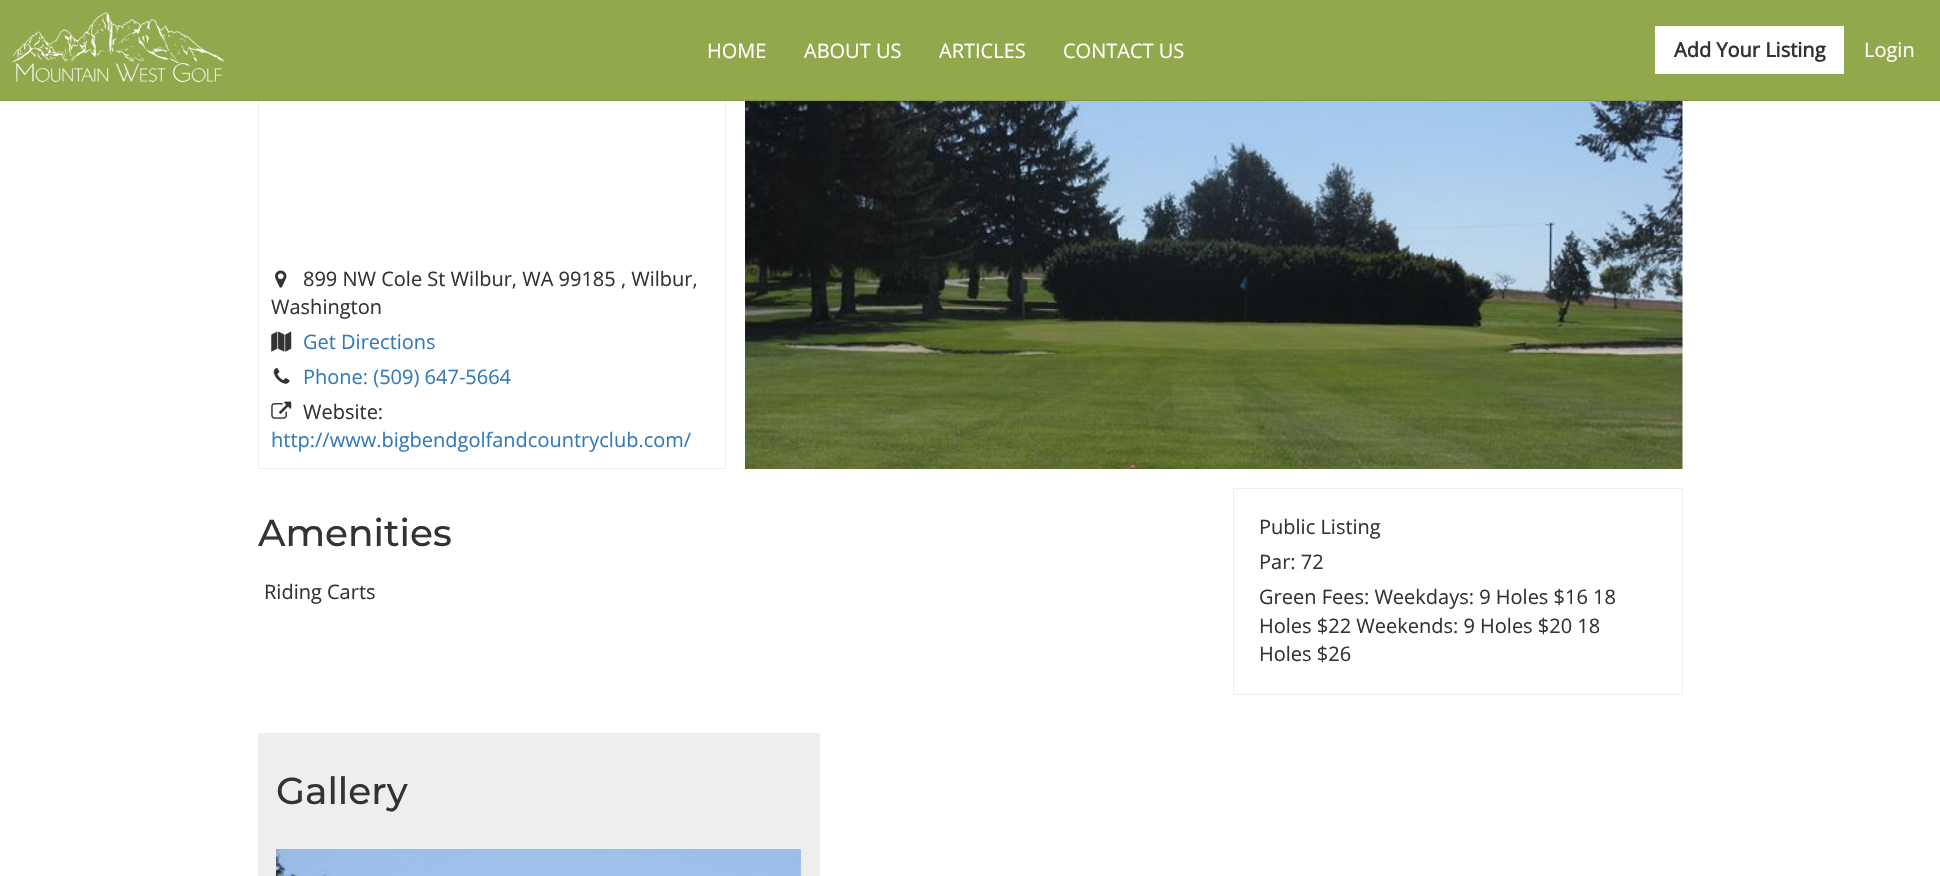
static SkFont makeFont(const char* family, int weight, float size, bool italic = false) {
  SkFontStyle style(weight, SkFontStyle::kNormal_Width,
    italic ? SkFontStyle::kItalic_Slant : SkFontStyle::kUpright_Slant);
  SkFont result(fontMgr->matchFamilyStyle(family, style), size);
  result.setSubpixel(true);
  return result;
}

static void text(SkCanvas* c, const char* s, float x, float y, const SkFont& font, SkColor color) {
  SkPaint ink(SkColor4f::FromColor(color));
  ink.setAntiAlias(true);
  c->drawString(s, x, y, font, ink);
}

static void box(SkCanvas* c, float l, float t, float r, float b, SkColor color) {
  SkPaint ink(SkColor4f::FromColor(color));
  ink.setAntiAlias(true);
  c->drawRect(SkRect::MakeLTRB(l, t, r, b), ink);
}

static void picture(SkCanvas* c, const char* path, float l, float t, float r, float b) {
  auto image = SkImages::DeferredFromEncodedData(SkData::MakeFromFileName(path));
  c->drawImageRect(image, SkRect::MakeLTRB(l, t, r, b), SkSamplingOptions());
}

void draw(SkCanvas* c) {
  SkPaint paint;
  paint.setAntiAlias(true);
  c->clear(0xffffffff);
  paint.setStyle(SkPaint::kStroke_Style);
  paint.setStrokeWidth(1);
  paint.setColor(0xffeeeeee);
  c->drawRect(SkRect::MakeLTRB(258.5f, -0.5f, 725.5f, 468.5f), paint);
  box(c, 0, 0, 1940, 100, 0xff91a94c);
  box(c, 0, 100, 1940, 101, 0xff829744);
  picture(c, "img_01.png", 12, 12, 225, 83);
  SkFont face1 = makeFont("Open Sans", 400, 20);
  text(c, "HOME", 707, 58, face1, 0xffffffff);
  text(c, "ABOUT US", 804, 58, face1, 0xffffffff);
  text(c, "ARTICLES", 939, 58, face1, 0xffffffff);
  text(c, "CONTACT US", 1063, 58, face1, 0xffffffff);
  box(c, 1655, 26, 1844, 74, 0xffffffff);
  SkFont face2 = makeFont("Open Sans", 700, 20);
  text(c, "Add Your Listing", 1674, 57, face2, 0xff333333);
  text(c, "Login", 1864, 57, face1, 0xffffffff);
  picture(c, "img_02.png", 275, 270, 287, 288);
  text(c, "899 NW Cole St Wilbur, WA 99185 , Wilbur,", 303, 286, face1, 0xff333333);
  text(c, "Washington", 271, 314, face1, 0xff333333);
  picture(c, "img_03.png", 271, 331, 292, 352);
  text(c, "Get Directions", 303, 349, face1, 0xff337ab7);
  picture(c, "img_04.png", 273, 368, 290, 384);
  text(c, "Phone: (509) 647-5664", 303, 384, face1, 0xff337ab7);
  picture(c, "img_05.png", 271, 401, 292, 419);
  text(c, "Website:", 303, 419, face1, 0xff333333);
  text(c, "http://www.bigbendgolfandcountryclub.com/", 271, 447, face1, 0xff337ab7);
  picture(c, "img_06.png", 745, 101, 1683, 469);
  SkFont face3 = makeFont("Montserrat", 500, 37.5f);
  text(c, "Amenities", 258, 546, face3, 0xff333333);
  text(c, "Riding Carts", 264, 599, face1, 0xff333333);
  c->drawRect(SkRect::MakeLTRB(1233.5f, 488.5f, 1682.5f, 694.5f), paint);
  text(c, "Public Listing", 1259, 534, face1, 0xff333333);
  text(c, "Par: 72", 1259, 569, face1, 0xff333333);
  text(c, "Green Fees: Weekdays: 9 Holes $16 18", 1259, 604, face1, 0xff333333);
  text(c, "Holes $22 Weekends: 9 Holes $20 18", 1259, 633, face1, 0xff333333);
  text(c, "Holes $26", 1259, 661, face1, 0xff333333);
  box(c, 258, 733, 820, 876, 0xffeeeeee);
  text(c, "Gallery", 276, 804, face3, 0xff333333);
  picture(c, "img_07.png", 276, 849, 801, 876);
}
